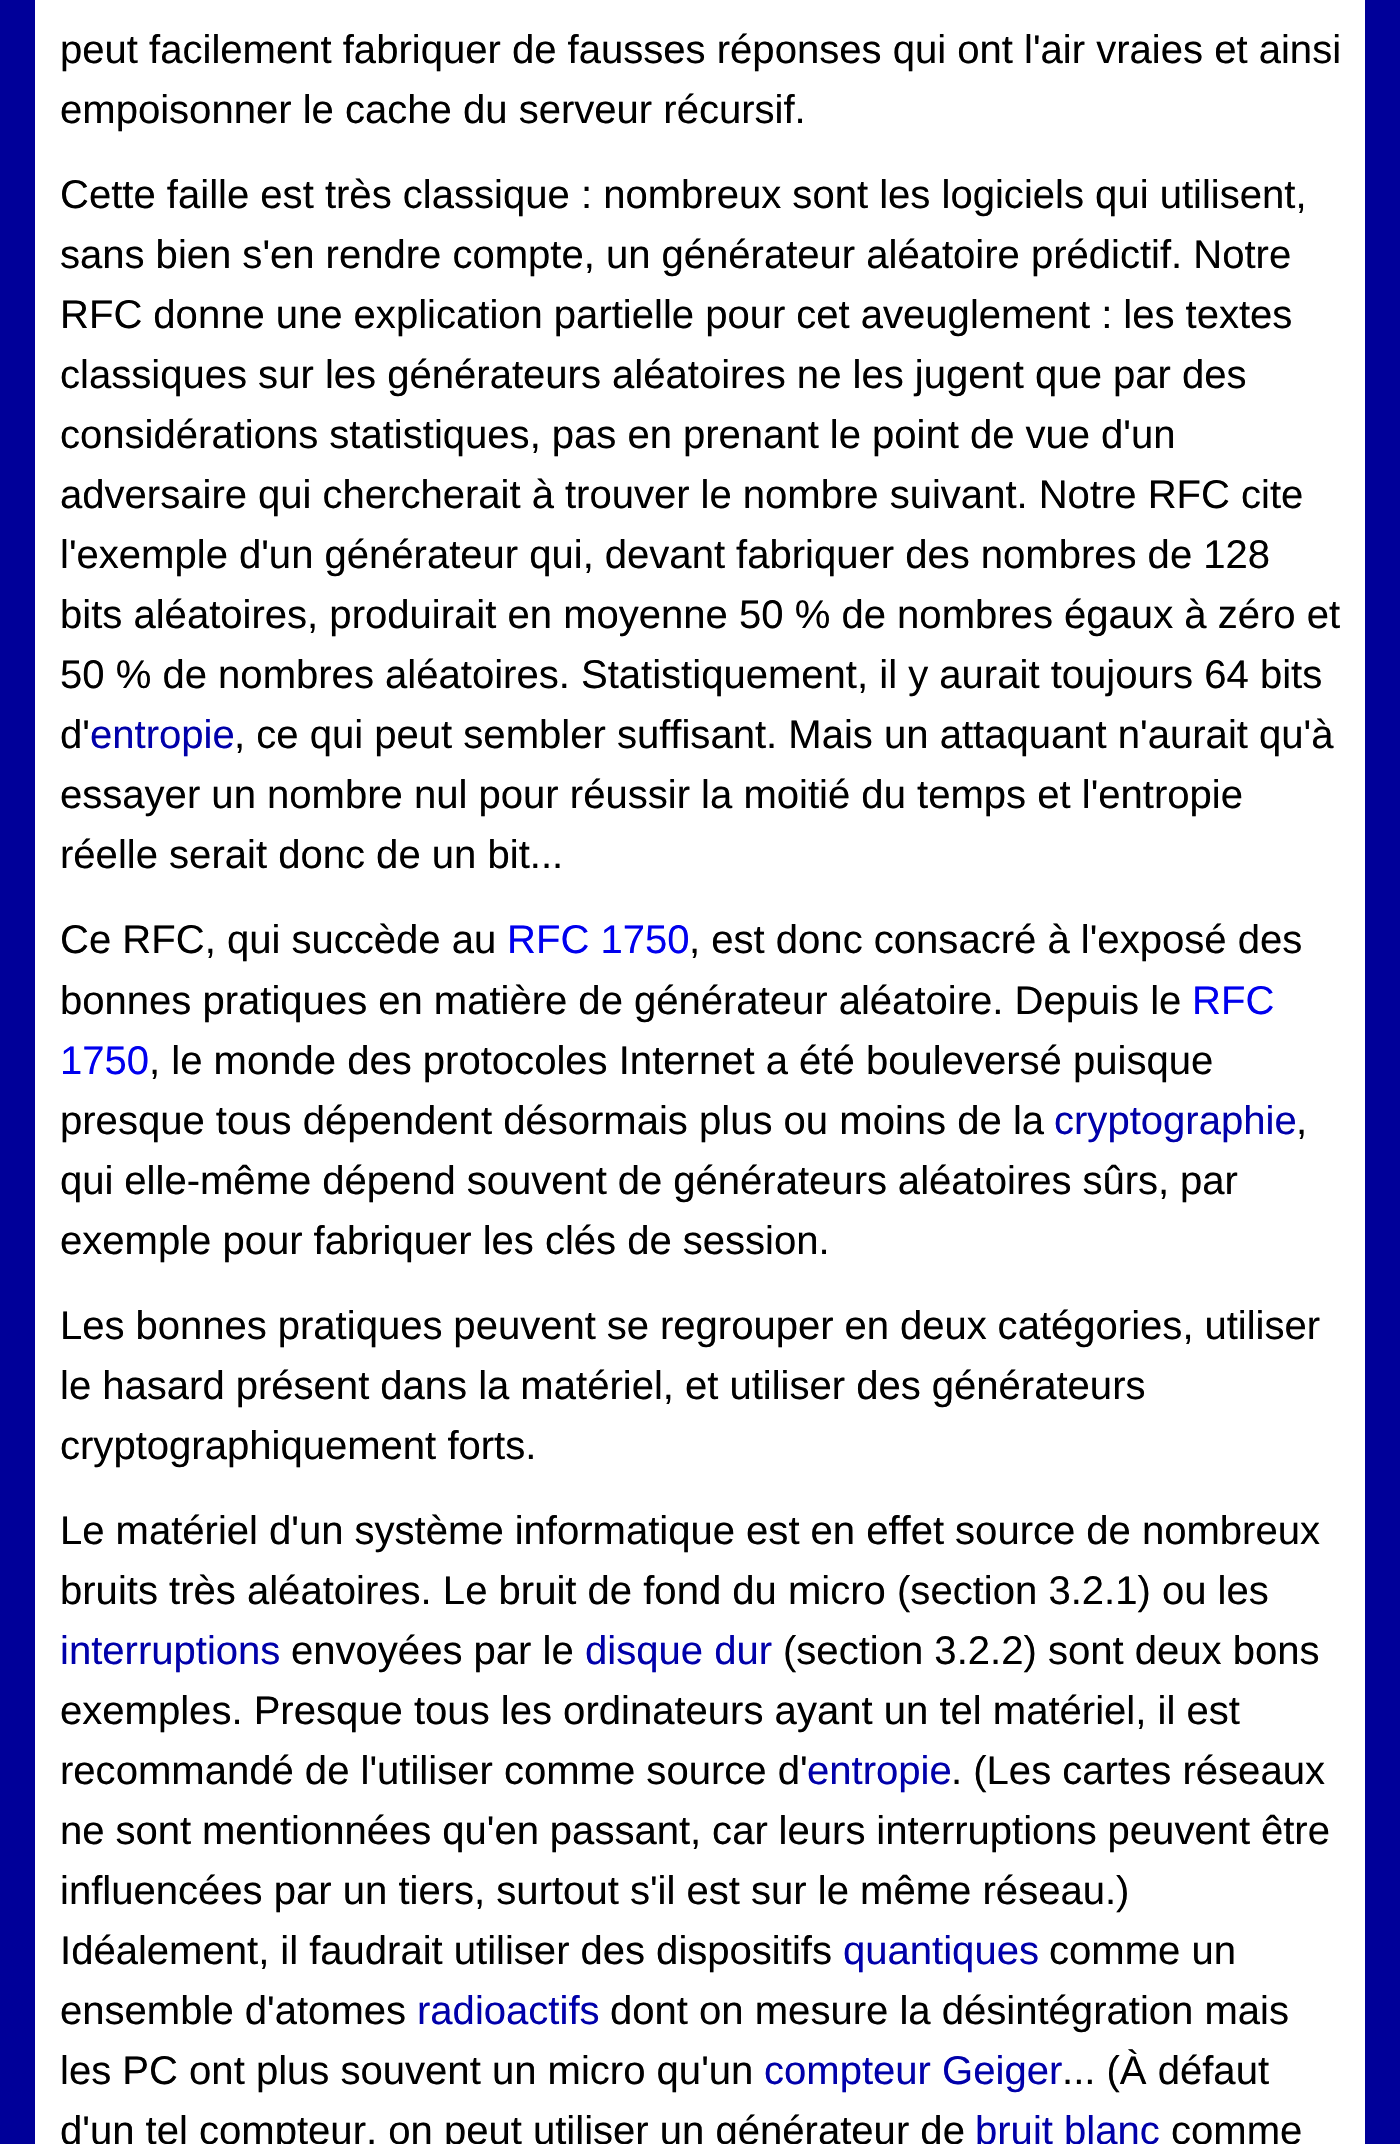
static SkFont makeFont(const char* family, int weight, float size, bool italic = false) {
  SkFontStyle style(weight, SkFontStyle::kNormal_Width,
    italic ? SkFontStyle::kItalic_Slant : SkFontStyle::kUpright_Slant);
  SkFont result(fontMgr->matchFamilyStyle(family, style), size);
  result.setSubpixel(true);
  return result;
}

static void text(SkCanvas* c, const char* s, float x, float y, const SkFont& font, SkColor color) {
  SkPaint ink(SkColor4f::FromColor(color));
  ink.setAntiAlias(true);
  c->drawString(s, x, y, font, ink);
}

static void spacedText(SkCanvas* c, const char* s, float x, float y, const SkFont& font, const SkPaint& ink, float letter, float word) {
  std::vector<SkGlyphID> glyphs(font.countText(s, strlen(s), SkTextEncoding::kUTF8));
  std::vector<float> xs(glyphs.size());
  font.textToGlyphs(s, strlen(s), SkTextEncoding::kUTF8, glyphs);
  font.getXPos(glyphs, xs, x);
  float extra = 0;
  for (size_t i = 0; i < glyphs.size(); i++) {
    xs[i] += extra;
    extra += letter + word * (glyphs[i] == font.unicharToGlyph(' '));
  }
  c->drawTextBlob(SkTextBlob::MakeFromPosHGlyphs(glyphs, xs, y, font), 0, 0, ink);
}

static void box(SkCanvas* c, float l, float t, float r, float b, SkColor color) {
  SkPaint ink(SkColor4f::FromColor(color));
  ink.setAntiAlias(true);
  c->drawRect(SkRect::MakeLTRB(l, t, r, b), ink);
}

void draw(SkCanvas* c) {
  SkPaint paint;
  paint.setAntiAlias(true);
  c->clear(0xff000099);
  box(c, 35, 0, 1365, 2144, 0xffffffff);
  SkFont face1 = makeFont("Liberation Sans", 400, 40.05f);
  text(c, "peut facilement fabriquer de fausses réponses qui ont l'air vraies et ainsi", 60, 63, face1, 0xff000000);
  text(c, "empoisonner le cache du serveur récursif.", 60, 123, face1, 0xff000000);
  text(c, "Cette faille est très classique : nombreux sont les logiciels qui utilisent,", 60, 208, face1, 0xff000000);
  paint.setColor(0xff000000);
  spacedText(c, "sans bien s'en rendre compte, un générateur aléatoire prédictif. Notre", 60, 268, face1, paint, 0, -0.1f);
  spacedText(c, "RFC donne une explication partielle pour cet aveuglement : les textes", 60, 328, face1, paint, 0, -0.1f);
  text(c, "classiques sur les générateurs aléatoires ne les jugent que par des", 60, 388, face1, 0xff000000);
  spacedText(c, "considérations statistiques, pas en prenant le point de vue d'un", 60, 448, face1, paint, 0, -0.1f);
  spacedText(c, "adversaire qui chercherait à trouver le nombre suivant. Notre RFC cite", 60, 508, face1, paint, 0, -0.1f);
  spacedText(c, "l'exemple d'un générateur qui, devant fabriquer des nombres de 128", 60, 568, face1, paint, 0, -0.1f);
  text(c, "bits aléatoires, produirait en moyenne 50 % de nombres égaux à zéro et", 60, 628, face1, 0xff000000);
  text(c, "50 % de nombres aléatoires. Statistiquement, il y aurait toujours 64 bits", 60, 688, face1, 0xff000000);
  text(c, "d'", 60, 748, face1, 0xff000000);
  text(c, "entropie", 90, 748, face1, 0xff0000aa);
  text(c, ", ce qui peut sembler suffisant. Mais un attaquant n'aurait qu'à", 234, 748, face1, 0xff000000);
  text(c, "essayer un nombre nul pour réussir la moitié du temps et l'entropie", 60, 808, face1, 0xff000000);
  text(c, "réelle serait donc de un bit...", 60, 868, face1, 0xff000000);
  text(c, "Ce RFC, qui succède au", 60, 953, face1, 0xff000000);
  text(c, "RFC 1750", 507, 953, face1, 0xff0000ee);
  text(c, ", est donc consacré à l'exposé des", 689, 953, face1, 0xff000000);
  spacedText(c, "bonnes pratiques en matière de générateur aléatoire. Depuis le", 60, 1014, face1, paint, 0, -0.1f);
  text(c, "RFC", 1192, 1014, face1, 0xff0000ee);
  text(c, "1750", 60, 1074, face1, 0xff0000ee);
  text(c, ", le monde des protocoles Internet a été bouleversé puisque", 149, 1074, face1, 0xff000000);
  text(c, "presque tous dépendent désormais plus ou moins de la", 60, 1134, face1, 0xff000000);
  text(c, "cryptographie", 1054, 1134, face1, 0xff0000aa);
  text(c, ",", 1296, 1134, face1, 0xff000000);
  spacedText(c, "qui elle-même dépend souvent de générateurs aléatoires sûrs, par", 60, 1194, face1, paint, 0, -0.25f);
  spacedText(c, "exemple pour fabriquer les clés de session.", 60, 1254, face1, paint, 0, -0.1f);
  spacedText(c, "Les bonnes pratiques peuvent se regrouper en deux catégories, utiliser", 60, 1339, face1, paint, 0, -0.25f);
  spacedText(c, "le hasard présent dans la matériel, et utiliser des générateurs", 60, 1399, face1, paint, 0, -0.1f);
  text(c, "cryptographiquement forts.", 60, 1459, face1, 0xff000000);
  spacedText(c, "Le matériel d'un système informatique est en effet source de nombreux", 60, 1544, face1, paint, 0, -0.1f);
  text(c, "bruits très aléatoires. Le bruit de fond du micro (section 3.2.1) ou les", 60, 1604, face1, 0xff000000);
  text(c, "interruptions", 60, 1664, face1, 0xff0000aa);
  text(c, "envoyées par le", 291, 1664, face1, 0xff000000);
  text(c, "disque dur", 585, 1664, face1, 0xff0000aa);
  text(c, "(section 3.2.2) sont deux bons", 783, 1664, face1, 0xff000000);
  text(c, "exemples. Presque tous les ordinateurs ayant un tel matériel, il est", 60, 1724, face1, 0xff000000);
  text(c, "recommandé de l'utiliser comme source d'", 60, 1784, face1, 0xff000000);
  text(c, "entropie", 807, 1784, face1, 0xff0000aa);
  text(c, ". (Les cartes réseaux", 951, 1784, face1, 0xff000000);
  spacedText(c, "ne sont mentionnées qu'en passant, car leurs interruptions peuvent être", 60, 1844, face1, paint, 0, -0.25f);
  text(c, "influencées par un tiers, surtout s'il est sur le même réseau.)", 60, 1904, face1, 0xff000000);
  spacedText(c, "Idéalement, il faudrait utiliser des dispositifs", 60, 1964, face1, paint, 0, -0.1f);
  text(c, "quantiques", 843, 1964, face1, 0xff0000aa);
  text(c, "comme un", 1049, 1964, face1, 0xff000000);
  text(c, "ensemble d'atomes", 60, 2024, face1, 0xff000000);
  text(c, "radioactifs", 417, 2024, face1, 0xff0000aa);
  text(c, "dont on mesure la désintégration mais", 610, 2024, face1, 0xff000000);
  text(c, "les PC ont plus souvent un micro qu'un", 60, 2084, face1, 0xff000000);
  text(c, "compteur Geiger", 764, 2084, face1, 0xff0000aa);
  text(c, "... (À défaut", 1062, 2084, face1, 0xff000000);
  text(c, "d'un tel compteur, on peut utiliser un générateur de", 60, 2144, face1, 0xff000000);
  text(c, "bruit blanc", 975, 2144, face1, 0xff0000aa);
  text(c, "comme", 1171, 2144, face1, 0xff000000);
}
